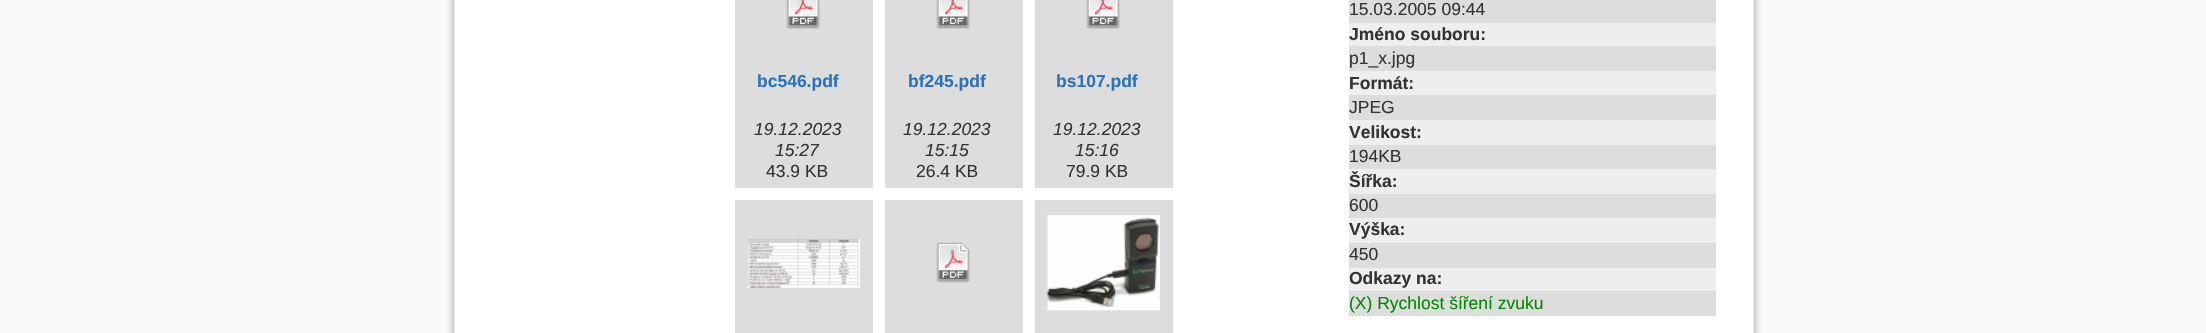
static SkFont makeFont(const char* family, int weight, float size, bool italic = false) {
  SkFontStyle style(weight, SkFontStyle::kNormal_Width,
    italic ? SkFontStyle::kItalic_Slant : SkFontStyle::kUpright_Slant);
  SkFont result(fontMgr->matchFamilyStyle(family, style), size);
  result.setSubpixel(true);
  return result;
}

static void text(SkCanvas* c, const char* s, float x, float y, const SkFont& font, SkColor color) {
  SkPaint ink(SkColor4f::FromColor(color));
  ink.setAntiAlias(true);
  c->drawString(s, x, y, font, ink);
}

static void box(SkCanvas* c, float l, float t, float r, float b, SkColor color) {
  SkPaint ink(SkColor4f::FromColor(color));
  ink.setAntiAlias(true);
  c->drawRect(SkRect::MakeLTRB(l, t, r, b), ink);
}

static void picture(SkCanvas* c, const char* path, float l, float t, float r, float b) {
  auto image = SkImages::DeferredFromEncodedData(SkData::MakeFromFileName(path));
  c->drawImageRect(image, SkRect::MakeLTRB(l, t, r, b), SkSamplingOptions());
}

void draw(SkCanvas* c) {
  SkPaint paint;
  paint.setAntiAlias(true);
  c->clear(0xfffbfaf9);
  paint.setColor(0xff999999);
  paint.setMaskFilter(SkMaskFilter::MakeBlur(kNormal_SkBlurStyle, 4.5f));
  c->drawRoundRect(SkRect::MakeLTRB(454, -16, 1754, 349), 2.5f, 2.5f, paint);
  paint.setMaskFilter(nullptr);
  paint.setColor(0xffffffff);
  c->drawRect(SkRect::MakeLTRB(454.5f, -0.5f, 1753.5f, 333.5f), paint);
  paint.setStyle(SkPaint::kStroke_Style);
  paint.setStrokeWidth(1);
  paint.setColor(0xffeeeeee);
  c->drawRect(SkRect::MakeLTRB(454.5f, -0.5f, 1753.5f, 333.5f), paint);
  box(c, 735, 0, 873, 188, 0xffdddddd);
  picture(c, "img_01.png", 786, 0, 820, 29);
  SkFont face1 = makeFont("Liberation Sans", 700, 17.5f);
  text(c, "bc546.pdf", 757, 87, face1, 0xff2b73b7);
  SkFont face2 = makeFont("Liberation Sans", 400, 17.5f, true);
  text(c, "19.12.2023", 754, 135, face2, 0xff333333);
  text(c, "15:27", 775, 156, face2, 0xff333333);
  SkFont face3 = makeFont("Liberation Sans", 400, 17.5f);
  text(c, "43.9 KB", 766, 177, face3, 0xff333333);
  box(c, 885, 0, 1023, 188, 0xffdddddd);
  picture(c, "img_02.png", 936, 0, 970, 29);
  text(c, "bf245.pdf", 908, 87, face1, 0xff2b73b7);
  text(c, "19.12.2023", 903, 135, face2, 0xff333333);
  text(c, "15:15", 925, 156, face2, 0xff333333);
  text(c, "26.4 KB", 916, 177, face3, 0xff333333);
  box(c, 1035, 0, 1173, 188, 0xffdddddd);
  picture(c, "img_02.png", 1086, 0, 1120, 29);
  text(c, "bs107.pdf", 1056, 87, face1, 0xff2b73b7);
  text(c, "19.12.2023", 1053, 135, face2, 0xff333333);
  text(c, "15:16", 1075, 156, face2, 0xff333333);
  text(c, "79.9 KB", 1066, 177, face3, 0xff333333);
  box(c, 735, 200, 873, 333, 0xffdddddd);
  picture(c, "img_03.png", 747, 239, 860, 288);
  box(c, 885, 200, 1023, 333, 0xffdddddd);
  picture(c, "img_04.png", 936, 242, 970, 283);
  box(c, 1035, 200, 1173, 333, 0xffdddddd);
  picture(c, "img_05.png", 1047, 215, 1160, 311);
  box(c, 1349, 0, 1716, 23, 0xffdddddd);
  text(c, "15.03.2005 09:44", 1349, 15, face3, 0xff333333);
  box(c, 1349, 23, 1716, 46, 0xffeeeeee);
  text(c, "Jméno souboru:", 1349, 40, face1, 0xff333333);
  box(c, 1349, 46, 1716, 71, 0xffdddddd);
  text(c, "p1_x.jpg", 1349, 64, face3, 0xff333333);
  box(c, 1349, 71, 1716, 95, 0xffeeeeee);
  text(c, "Formát:", 1349, 89, face1, 0xff333333);
  box(c, 1349, 95, 1716, 120, 0xffdddddd);
  text(c, "JPEG", 1349, 113, face3, 0xff333333);
  box(c, 1349, 120, 1716, 145, 0xffeeeeee);
  text(c, "Velikost:", 1349, 138, face1, 0xff333333);
  box(c, 1349, 145, 1716, 169, 0xffdddddd);
  text(c, "194KB", 1349, 162, face3, 0xff333333);
  box(c, 1349, 169, 1716, 194, 0xffeeeeee);
  text(c, "Šířka:", 1349, 187, face1, 0xff333333);
  box(c, 1349, 194, 1716, 218, 0xffdddddd);
  text(c, "600", 1349, 211, face3, 0xff333333);
  box(c, 1349, 218, 1716, 243, 0xffeeeeee);
  text(c, "Výška:", 1349, 235, face1, 0xff333333);
  box(c, 1349, 243, 1716, 268, 0xffdddddd);
  text(c, "450", 1349, 260, face3, 0xff333333);
  box(c, 1349, 268, 1716, 291, 0xffeeeeee);
  text(c, "Odkazy na:", 1349, 284, face1, 0xff333333);
  box(c, 1349, 291, 1716, 316, 0xffdddddd);
  text(c, "(X) Rychlost šíření zvuku", 1349, 309, face3, 0xff008800);
}
